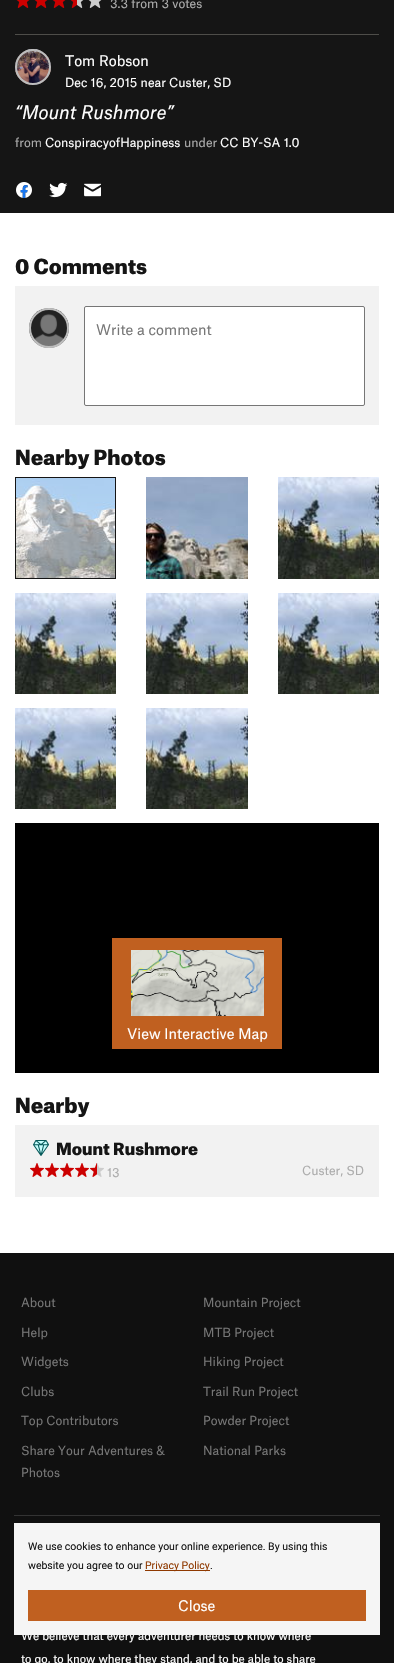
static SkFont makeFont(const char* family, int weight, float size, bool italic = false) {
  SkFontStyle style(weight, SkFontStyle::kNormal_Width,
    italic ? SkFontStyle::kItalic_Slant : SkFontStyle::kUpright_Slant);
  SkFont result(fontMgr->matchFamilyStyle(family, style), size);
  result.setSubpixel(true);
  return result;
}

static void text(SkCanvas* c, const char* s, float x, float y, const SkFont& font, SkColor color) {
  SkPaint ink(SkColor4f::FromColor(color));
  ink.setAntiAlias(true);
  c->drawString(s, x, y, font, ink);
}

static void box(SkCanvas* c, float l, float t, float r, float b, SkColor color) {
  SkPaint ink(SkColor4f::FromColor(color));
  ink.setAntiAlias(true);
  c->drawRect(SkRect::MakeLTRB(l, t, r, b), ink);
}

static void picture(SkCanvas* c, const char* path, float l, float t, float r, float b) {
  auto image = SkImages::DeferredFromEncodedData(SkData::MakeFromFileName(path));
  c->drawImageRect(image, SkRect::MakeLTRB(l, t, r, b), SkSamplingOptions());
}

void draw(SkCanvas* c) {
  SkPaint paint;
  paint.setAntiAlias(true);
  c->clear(0xffffffff);
  box(c, 0, 0, 394, 213, 0xff151515);
  picture(c, "img_01.png", 16, 0, 30, 8);
  picture(c, "img_01.png", 34, 0, 48, 8);
  picture(c, "img_01.png", 52, 0, 66, 8);
  picture(c, "img_02.png", 70, 0, 84, 8);
  picture(c, "img_03.png", 88, 0, 102, 8);
  SkFont face1 = makeFont("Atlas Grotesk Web", 400, 12);
  text(c, "3.3 from 3 votes", 110, 8, face1, 0xffacacac);
  box(c, 15, 34, 379, 35, 0xff4e4d49);
  picture(c, "img_04.png", 15, 49, 51, 85);
  paint.setStyle(SkPaint::kStroke_Style);
  paint.setStrokeWidth(2);
  paint.setColor(0xffbdbdbd);
  c->drawCircle(33, 67, 17, paint);
  SkFont face2 = makeFont("Atlas Grotesk Web", 400, 14);
  text(c, "Tom Robson", 65, 66, face2, 0xffffffff);
  text(c, "Dec 16, 2015 near Custer, SD", 65, 87, face1, 0xffffffff);
  SkFont face3 = makeFont("Atlas Grotesk Web", 400, 18, true);
  text(c, "“Mount Rushmore”", 15, 119, face3, 0xffffffff);
  text(c, "from", 15, 147, face1, 0xffacacac);
  text(c, "ConspiracyofHappiness", 45, 147, face1, 0xffffffff);
  text(c, "under", 184, 147, face1, 0xffacacac);
  text(c, "CC BY-SA 1.0", 220, 147, face1, 0xffffffff);
  picture(c, "img_05.png", 16, 182, 32, 198);
  picture(c, "img_06.png", 49, 182, 68, 198);
  picture(c, "img_07.png", 84, 183, 101, 197);
  SkFont face4 = makeFont("Atlas Grotesk Web", 900, 20);
  text(c, "0 Comments", 15, 274, face4, 0xff151515);
  box(c, 15, 286, 379, 425, 0xfff2f2f2);
  picture(c, "img_08.png", 29, 308, 69, 348);
  c->drawCircle(49, 328, 19, paint);
  paint.setStyle(SkPaint::kFill_Style);
  paint.setColor(0xffffffff);
  c->drawRoundRect(SkRect::MakeLTRB(84.5f, 306.5f, 364.5f, 405.5f), 1.5f, 1.5f, paint);
  paint.setStyle(SkPaint::kStroke_Style);
  paint.setStrokeWidth(1);
  paint.setColor(0xff767676);
  c->drawRoundRect(SkRect::MakeLTRB(84.5f, 306.5f, 364.5f, 405.5f), 1.5f, 1.5f, paint);
  text(c, "Write a comment", 96, 335, face2, 0xff777777);
  text(c, "Nearby Photos", 15, 465, face4, 0xff151515);
  paint.setColor(0xff151515);
  c->drawRect(SkRect::MakeLTRB(15.5f, 477.5f, 115.5f, 578.5f), paint);
  picture(c, "img_09.png", 16, 478, 115, 578);
  picture(c, "img_10.png", 146, 477, 248, 579);
  picture(c, "img_11.png", 278, 477, 379, 579);
  picture(c, "img_12.png", 15, 593, 116, 694);
  picture(c, "img_13.png", 146, 593, 248, 694);
  picture(c, "img_14.png", 278, 593, 379, 694);
  picture(c, "img_15.png", 15, 708, 116, 809);
  picture(c, "img_16.png", 146, 708, 248, 809);
  box(c, 15, 823, 379, 1073, 0xff000000);
  box(c, 112, 938, 282, 1049, 0xffc06020);
  picture(c, "img_17.png", 131, 950, 264, 1016);
  text(c, "View Interactive Map", 127, 1039, face2, 0xffffffff);
  text(c, "Nearby", 15, 1113, face4, 0xff151515);
  box(c, 15, 1125, 379, 1197, 0xfff2f2f2);
  picture(c, "img_18.png", 33, 1140, 49, 1156);
  SkFont face5 = makeFont("Atlas Grotesk Web", 900, 16);
  text(c, "Mount Rushmore", 56, 1155, face5, 0xff151515);
  picture(c, "img_19.png", 30, 1163, 44, 1177);
  picture(c, "img_19.png", 45, 1163, 59, 1177);
  picture(c, "img_19.png", 60, 1163, 74, 1177);
  picture(c, "img_19.png", 75, 1163, 89, 1177);
  picture(c, "img_20.png", 90, 1163, 104, 1177);
  text(c, "13", 107, 1177, face1, 0xffacacac);
  text(c, "Custer, SD", 302, 1175, face1, 0xffacacac);
  box(c, 0, 1253, 394, 1663, 0xff101010);
  box(c, 14, 1515, 380, 1516, 0xff333333);
  text(c, "About", 21, 1307, face1, 0xff777777);
  text(c, "Mountain Project", 203, 1307, face1, 0xff777777);
  text(c, "Help", 21, 1337, face1, 0xff777777);
  text(c, "MTB Project", 203, 1337, face1, 0xff777777);
  text(c, "Widgets", 21, 1366, face1, 0xff777777);
  text(c, "Hiking Project", 203, 1366, face1, 0xff777777);
  text(c, "Clubs", 21, 1396, face1, 0xff777777);
  text(c, "Trail Run Project", 203, 1396, face1, 0xff777777);
  text(c, "Top Contributors", 21, 1425, face1, 0xff777777);
  text(c, "Powder Project", 203, 1425, face1, 0xff777777);
  text(c, "Share Your Adventures &", 21, 1455, face1, 0xff777777);
  text(c, "Photos", 21, 1477, face1, 0xff777777);
  text(c, "National Parks", 203, 1455, face1, 0xff777777);
  SkFont face6 = makeFont("Atlas Grotesk Web", 400, 11.2f);
  text(c, "We believe that every adventurer needs to know where", 21, 1640, face6, 0xffffffff);
  text(c, "to go, to know where they stand, and to be able to share", 21, 1663, face6, 0xffffffff);
  box(c, 14, 1523, 380, 1635, 0xfff5f5f5);
  SkFont face7 = makeFont("Roboto", 400, 10.5f);
  text(c, "We use cookies to enhance your online experience. By using this", 28, 1550, face7, 0xff151515);
  text(c, "website you agree to our", 28, 1569, face7, 0xff151515);
  box(c, 145, 1570, 210, 1571, 0xff8f3900);
  text(c, "Privacy Policy", 145, 1569, face7, 0xff8f3900);
  text(c, ".", 210, 1569, face7, 0xff151515);
  box(c, 28, 1590, 366, 1621, 0xffc06020);
  text(c, "Close", 178, 1611, face2, 0xffffffff);
}
